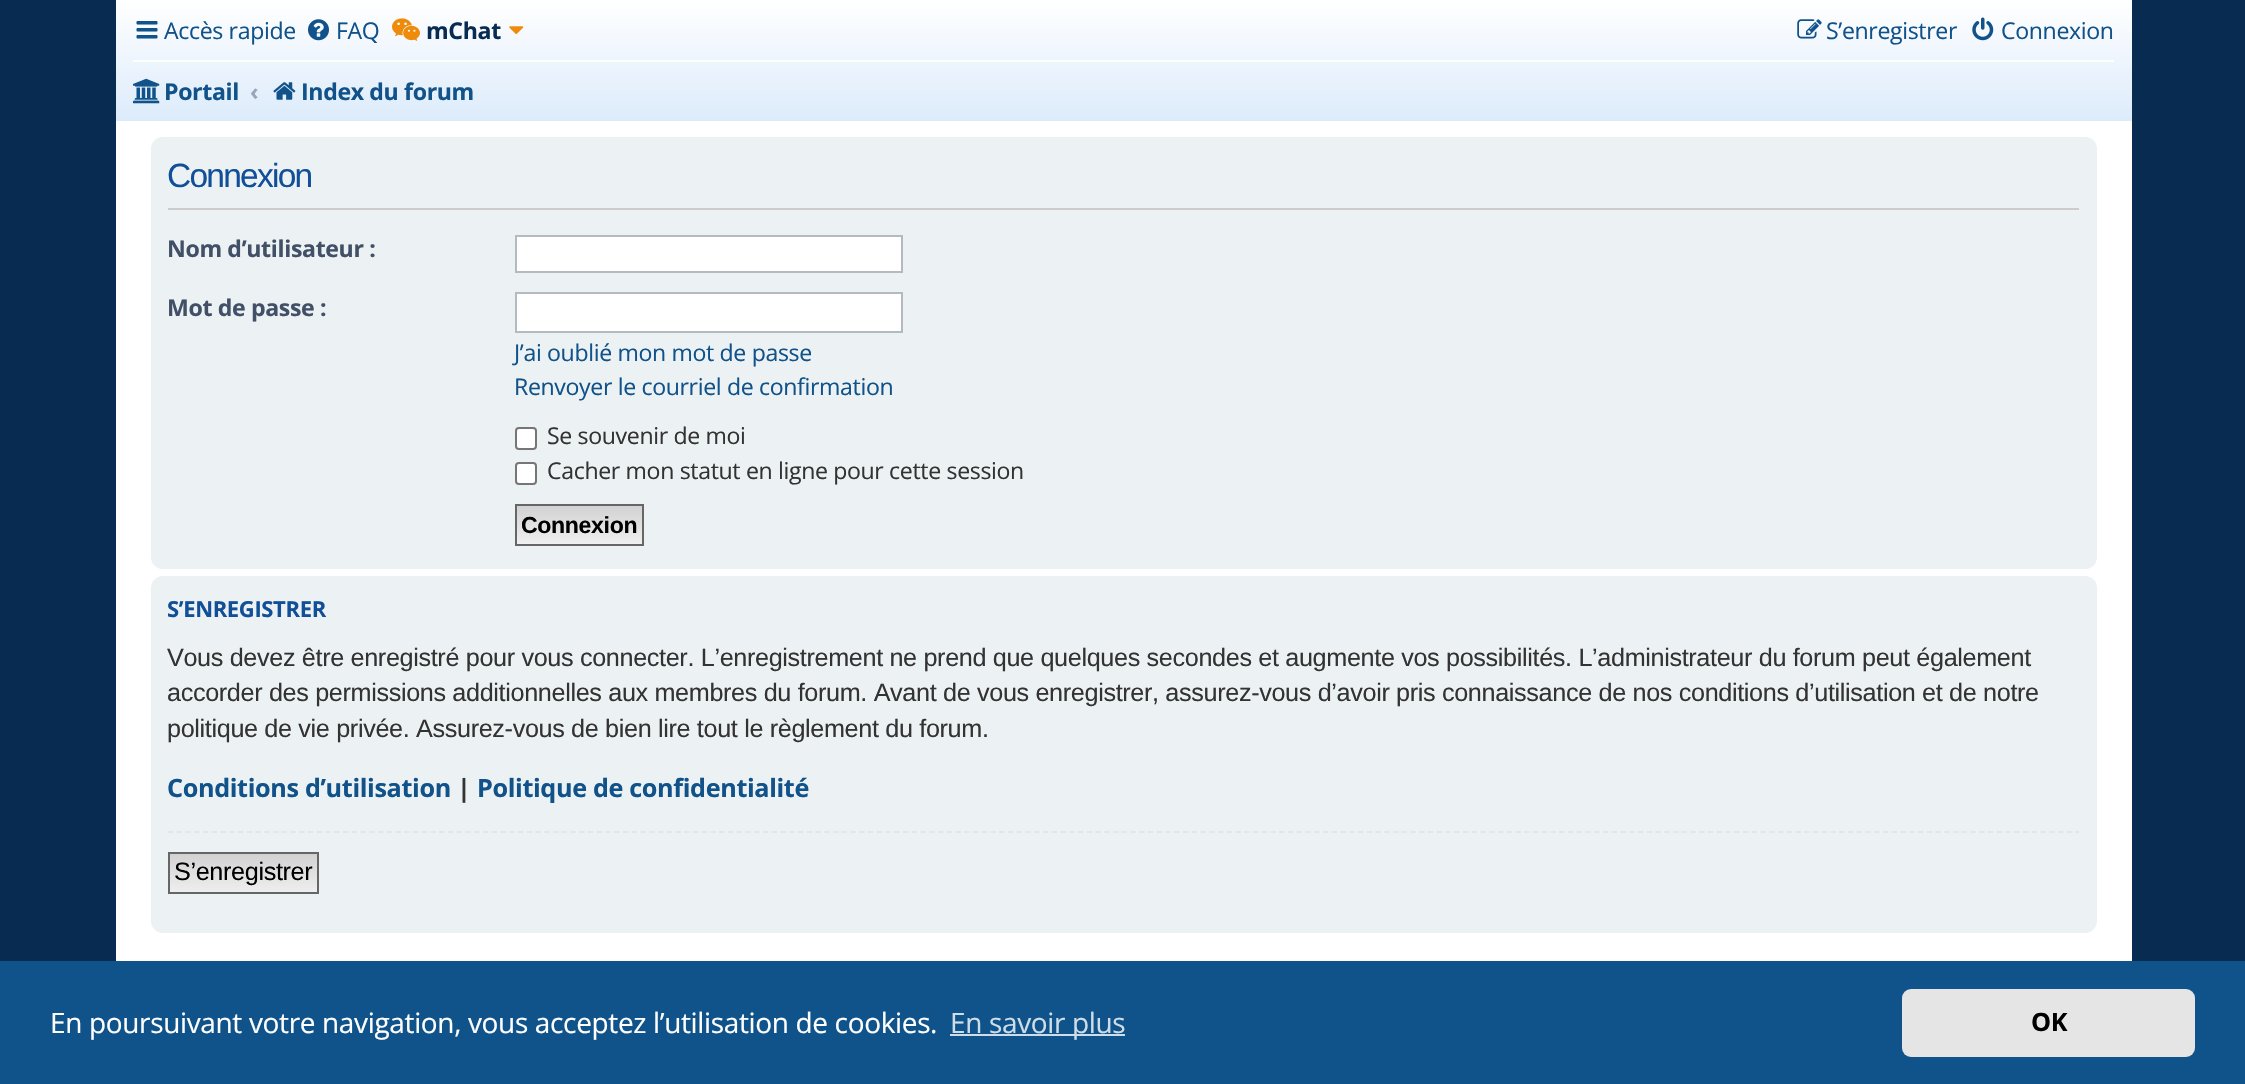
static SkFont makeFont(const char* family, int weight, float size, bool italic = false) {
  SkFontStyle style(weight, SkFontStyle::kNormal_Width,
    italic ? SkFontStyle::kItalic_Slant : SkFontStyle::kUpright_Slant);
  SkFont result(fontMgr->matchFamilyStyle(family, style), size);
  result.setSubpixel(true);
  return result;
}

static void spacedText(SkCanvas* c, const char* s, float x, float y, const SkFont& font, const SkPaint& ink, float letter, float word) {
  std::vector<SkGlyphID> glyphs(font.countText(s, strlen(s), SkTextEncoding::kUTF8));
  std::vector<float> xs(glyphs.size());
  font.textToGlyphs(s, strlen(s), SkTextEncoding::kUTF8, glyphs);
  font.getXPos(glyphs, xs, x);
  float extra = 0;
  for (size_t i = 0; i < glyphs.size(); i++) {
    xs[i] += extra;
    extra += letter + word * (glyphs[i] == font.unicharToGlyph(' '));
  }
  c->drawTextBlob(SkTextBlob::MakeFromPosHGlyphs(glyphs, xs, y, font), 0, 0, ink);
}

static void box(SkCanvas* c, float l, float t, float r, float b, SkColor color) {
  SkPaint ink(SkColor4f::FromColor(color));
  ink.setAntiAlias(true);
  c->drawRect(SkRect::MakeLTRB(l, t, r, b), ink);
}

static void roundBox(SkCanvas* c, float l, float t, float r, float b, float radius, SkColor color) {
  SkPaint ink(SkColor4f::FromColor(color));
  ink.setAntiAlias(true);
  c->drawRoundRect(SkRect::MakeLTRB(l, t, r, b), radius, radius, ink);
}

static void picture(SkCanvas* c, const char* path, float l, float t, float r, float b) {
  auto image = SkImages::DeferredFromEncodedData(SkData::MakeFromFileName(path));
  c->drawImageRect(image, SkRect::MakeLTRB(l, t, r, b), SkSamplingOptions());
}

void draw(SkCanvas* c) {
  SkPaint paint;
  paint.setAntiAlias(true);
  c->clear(0xff082b51);
  box(c, 116, 121, 2132, 961, 0xffffffff);
  {
    const SkColor colors[] = {0xffdcebfb, 0xffffffff};
    const float stops[] = {0, 1};
    const SkPoint ends[] = {{1124, 121}, {1124, 0}};
    paint.setShader(SkGradientShader::MakeLinear(ends, colors, stops, 2, SkTileMode::kClamp));
    paint.setAlpha(255);
  }
  c->drawRect(SkRect::MakeLTRB(116, 0, 2132, 121), paint);
  picture(c, "img_01.png", 136, 21, 158, 39);
  SkFont face1 = makeFont("Open Sans", 400, 23.1f);
  paint.setShader(nullptr);
  paint.setColor(0xff105289);
  spacedText(c, "Accès rapide", 164, 39, face1, paint, -0.35f, 0);
  picture(c, "img_02.png", 308, 19, 329, 41);
  spacedText(c, "FAQ", 336, 39, face1, paint, -0.35f, 0);
  picture(c, "img_03.png", 392, 18, 420, 41);
  SkFont face2 = makeFont("Open Sans", 700, 23.1f);
  paint.setColor(0xff082c51);
  spacedText(c, "mChat", 426, 39, face2, paint, -0.35f, 0);
  picture(c, "img_04.png", 509, 26, 524, 35);
  picture(c, "img_05.png", 1797, 19, 1822, 39);
  paint.setColor(0xff105289);
  spacedText(c, "S’enregistrer", 1826, 39, face1, paint, -0.35f, 0);
  picture(c, "img_06.png", 1972, 17, 1994, 41);
  spacedText(c, "Connexion", 2001, 39, face1, paint, -0.35f, 0);
  box(c, 133, 60, 2114, 62, 0xffffffff);
  picture(c, "img_07.png", 133, 78, 160, 104);
  spacedText(c, "Portail", 164, 100, face2, paint, -0.35f, 0);
  paint.setColor(0xff98a6ba);
  spacedText(c, "‹", 250, 100, face2, paint, -0.35f, 0);
  picture(c, "img_08.png", 273, 82, 296, 100);
  paint.setColor(0xff105289);
  spacedText(c, "Index du forum", 301, 100, face2, paint, -0.35f, 0);
  roundBox(c, 151, 137, 2097, 569, 12, 0xffecf1f3);
  box(c, 168, 208, 2079, 210, 0xffcccccc);
  SkFont face3 = makeFont("Liberation Sans", 400, 33.5f);
  paint.setColor(0xff115098);
  spacedText(c, "Connexion", 167, 187, face3, paint, -1.75f, 0);
  paint.setColor(0xff425067);
  spacedText(c, "Nom d’utilisateur :", 167, 257, face2, paint, -0.35f, 0);
  paint.setColor(0xffffffff);
  c->drawRect(SkRect::MakeLTRB(516, 236, 902, 272), paint);
  paint.setStyle(SkPaint::kStroke_Style);
  paint.setStrokeWidth(2);
  paint.setColor(0xffb4bac0);
  c->drawRect(SkRect::MakeLTRB(516, 236, 902, 272), paint);
  paint.setStyle(SkPaint::kFill_Style);
  paint.setColor(0xff425067);
  spacedText(c, "Mot de passe :", 167, 316, face2, paint, -0.35f, 0);
  paint.setColor(0xffffffff);
  c->drawRect(SkRect::MakeLTRB(516, 293, 902, 332), paint);
  paint.setStyle(SkPaint::kStroke_Style);
  paint.setColor(0xffb4bac0);
  c->drawRect(SkRect::MakeLTRB(516, 293, 902, 332), paint);
  paint.setStyle(SkPaint::kFill_Style);
  paint.setColor(0xff105289);
  spacedText(c, "J’ai oublié mon mot de passe", 514, 361, face1, paint, -0.35f, 0);
  spacedText(c, "Renvoyer le courriel de confirmation", 514, 395, face1, paint, -0.35f, 0);
  paint.setColor(0xffffffff);
  c->drawRoundRect(SkRect::MakeLTRB(516, 428, 536, 449), 3, 3, paint);
  paint.setStyle(SkPaint::kStroke_Style);
  paint.setColor(0xff767676);
  c->drawRoundRect(SkRect::MakeLTRB(516, 428, 536, 449), 3, 3, paint);
  paint.setStyle(SkPaint::kFill_Style);
  paint.setColor(0xff333333);
  spacedText(c, "Se souvenir de moi", 547, 444, face1, paint, -0.35f, 0);
  paint.setColor(0xffffffff);
  c->drawRoundRect(SkRect::MakeLTRB(516, 463, 536, 484), 3, 3, paint);
  paint.setStyle(SkPaint::kStroke_Style);
  paint.setColor(0xff767676);
  c->drawRoundRect(SkRect::MakeLTRB(516, 463, 536, 484), 3, 3, paint);
  paint.setStyle(SkPaint::kFill_Style);
  paint.setColor(0xff333333);
  spacedText(c, "Cacher mon statut en ligne pour cette session", 547, 479, face1, paint, -0.35f, 0);
  {
    const SkColor colors[] = {0xffd2d2d2, 0xffefefef};
    const float stops[] = {0, 1};
    const SkPoint ends[] = {{579, 506}, {579, 544}};
    paint.setShader(SkGradientShader::MakeLinear(ends, colors, stops, 2, SkTileMode::kClamp));
    paint.setAlpha(255);
  }
  c->drawRect(SkRect::MakeLTRB(517, 506, 642, 544), paint);
  paint.setStyle(SkPaint::kStroke_Style);
  paint.setShader(nullptr);
  paint.setColor(0xff666666);
  c->drawRect(SkRect::MakeLTRB(516, 505, 643, 545), paint);
  SkFont face4 = makeFont("Liberation Sans", 700, 23.1f);
  paint.setStyle(SkPaint::kFill_Style);
  paint.setColor(0xff000000);
  spacedText(c, "Connexion", 521, 533, face4, paint, -0.35f, 0);
  roundBox(c, 151, 576, 2097, 933, 12, 0xffecf1f3);
  SkFont face5 = makeFont("Open Sans", 700, 22);
  paint.setColor(0xff115098);
  spacedText(c, "S’ENREGISTRER", 167, 617, face5, paint, -0.35f, 0);
  SkFont face6 = makeFont("Liberation Sans", 400, 25.2f);
  paint.setColor(0xff333333);
  spacedText(c, "Vous devez être enregistré pour vous connecter. L’enregistrement ne prend que quelques secondes et augmente vos possibilités. L’administrateur du forum peut également", 167, 666, face6, paint, -0.35f, 0);
  spacedText(c, "accorder des permissions additionnelles aux membres du forum. Avant de vous enregistrer, assurez-vous d’avoir pris connaissance de nos conditions d’utilisation et de notre", 167, 701, face6, paint, -0.35f, 0);
  spacedText(c, "politique de vie privée. Assurez-vous de bien lire tout le règlement du forum.", 167, 737, face6, paint, -0.35f, 0);
  SkFont face7 = makeFont("Open Sans", 700, 25.2f);
  paint.setColor(0xff105289);
  spacedText(c, "Conditions d’utilisation", 167, 797, face7, paint, -0.35f, 0);
  paint.setColor(0xff333333);
  spacedText(c, "|", 457, 797, face7, paint, -0.35f, 0);
  paint.setColor(0xff105289);
  spacedText(c, "Politique de confidentialité", 477, 797, face7, paint, -0.35f, 0);
  paint.setStyle(SkPaint::kStroke_Style);
  paint.setStrokeWidth(1.8f);
  paint.setColor(0xffe2e6e7);
  paint.setPathEffect(SkDashPathEffect::Make({{5.25f, 3.5f}}, 0));
  c->drawPath(SkPathBuilder().moveTo(168, 832).lineTo(2079, 832).detach(), paint);
  paint.setPathEffect(nullptr);
  paint.setStyle(SkPaint::kFill_Style);
  {
    const SkColor colors[] = {0xffd2d2d2, 0xffefefef};
    const float stops[] = {0, 1};
    const SkPoint ends[] = {{243, 854}, {243, 893}};
    paint.setShader(SkGradientShader::MakeLinear(ends, colors, stops, 2, SkTileMode::kClamp));
    paint.setAlpha(255);
  }
  c->drawRect(SkRect::MakeLTRB(170, 854, 317, 892), paint);
  paint.setStyle(SkPaint::kStroke_Style);
  paint.setStrokeWidth(2);
  paint.setShader(nullptr);
  paint.setColor(0xff666666);
  c->drawRect(SkRect::MakeLTRB(169, 853, 318, 893), paint);
  paint.setStyle(SkPaint::kFill_Style);
  paint.setColor(0xff000000);
  spacedText(c, "S’enregistrer", 174, 880, face6, paint, -0.35f, 0);
  box(c, 0, 961, 2245, 1084, 0xff0f538a);
  SkFont face8 = makeFont("Open Sans", 400, 28);
  paint.setColor(0xffffffff);
  spacedText(c, "En poursuivant votre navigation, vous acceptez l’utilisation de cookies.", 50, 1033, face8, paint, -0.35f, 0);
  box(c, 950, 1034, 1125, 1036, 0xffcfdde8);
  paint.setColor(0xffcfdde8);
  spacedText(c, "En savoir plus", 950, 1033, face8, paint, -0.35f, 0);
  roundBox(c, 1902, 989, 2195, 1057, 9, 0xffe5e5e5);
  paint.setColor(0xff000000);
  spacedText(c, "OK", 2031, 1031, face7, paint, -0.35f, 0);
}
